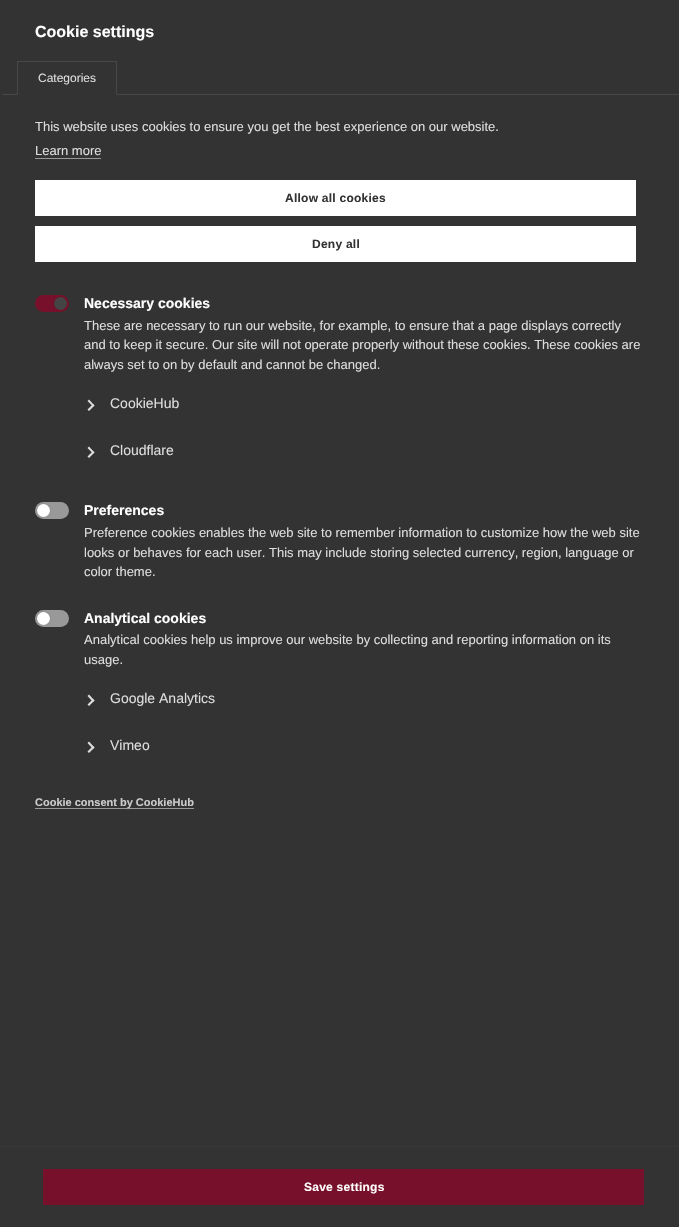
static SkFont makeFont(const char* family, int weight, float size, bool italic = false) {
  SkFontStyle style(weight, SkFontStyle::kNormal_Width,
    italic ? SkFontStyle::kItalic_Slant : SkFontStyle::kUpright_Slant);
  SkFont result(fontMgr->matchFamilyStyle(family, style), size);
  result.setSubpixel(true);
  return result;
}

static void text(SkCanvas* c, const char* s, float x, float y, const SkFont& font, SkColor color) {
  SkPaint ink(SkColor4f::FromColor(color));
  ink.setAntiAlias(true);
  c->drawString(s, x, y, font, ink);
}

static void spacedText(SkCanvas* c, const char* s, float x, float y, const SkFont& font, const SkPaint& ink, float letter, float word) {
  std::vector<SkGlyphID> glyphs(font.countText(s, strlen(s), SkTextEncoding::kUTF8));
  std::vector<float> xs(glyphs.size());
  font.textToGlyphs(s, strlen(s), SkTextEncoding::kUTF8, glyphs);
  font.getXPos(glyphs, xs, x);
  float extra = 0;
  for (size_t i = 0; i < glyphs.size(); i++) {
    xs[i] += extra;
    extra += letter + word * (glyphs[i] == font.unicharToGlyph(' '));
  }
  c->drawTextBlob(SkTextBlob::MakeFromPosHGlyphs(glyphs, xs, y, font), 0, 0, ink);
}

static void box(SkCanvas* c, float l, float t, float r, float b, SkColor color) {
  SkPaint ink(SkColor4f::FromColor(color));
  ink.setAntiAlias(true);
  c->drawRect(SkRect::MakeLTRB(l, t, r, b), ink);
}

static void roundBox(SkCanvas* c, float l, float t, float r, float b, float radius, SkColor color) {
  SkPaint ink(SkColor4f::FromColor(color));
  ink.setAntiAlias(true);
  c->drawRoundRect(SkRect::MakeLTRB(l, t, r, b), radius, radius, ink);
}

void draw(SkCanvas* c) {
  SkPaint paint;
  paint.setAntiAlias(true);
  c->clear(0xff333333);
  SkFont face1 = makeFont("Liberation Sans", 700, 16);
  text(c, "Cookie settings", 35, 37, face1, 0xffffffff);
  box(c, 2, 94, 679, 95, 0xff474747);
  box(c, 17, 94, 117, 95, 0xff333333);
  paint.setColor(0xff474747);
  c->drawPath(SkPathBuilder().moveTo(17, 61).lineTo(117, 61).lineTo(116, 62).lineTo(18, 62).close().detach(), paint);
  paint.setColor(0x1affffff);
  c->drawPath(SkPathBuilder().moveTo(117, 61).lineTo(117, 95).lineTo(116, 94).lineTo(116, 62).close().detach(), paint);
  paint.setColor(0xff333333);
  c->drawPath(SkPathBuilder().moveTo(117, 95).lineTo(17, 95).lineTo(18, 94).lineTo(116, 94).close().detach(), paint);
  paint.setColor(0x1affffff);
  c->drawPath(SkPathBuilder().moveTo(17, 95).lineTo(17, 61).lineTo(18, 62).lineTo(18, 94).close().detach(), paint);
  SkFont face2 = makeFont("Liberation Sans", 400, 12);
  text(c, "Categories", 38, 82, face2, 0xffdddddd);
  SkFont face3 = makeFont("Liberation Sans", 400, 13);
  text(c, "This website uses cookies to ensure you get the best experience on our website.", 35, 131, face3, 0xffdddddd);
  text(c, "Learn more", 35, 155, face3, 0xffdddddd);
  box(c, 35, 158, 101, 159, 0xff999999);
  box(c, 35, 180, 636, 216, 0xffffffff);
  SkFont face4 = makeFont("Liberation Sans", 700, 12);
  paint.setColor(0xff333333);
  spacedText(c, "Allow all cookies", 285, 202, face4, paint, 0.25f, 0);
  box(c, 35, 226, 636, 262, 0xffffffff);
  spacedText(c, "Deny all", 312, 248, face4, paint, 0.25f, 0);
  roundBox(c, 35, 295, 69, 312, 8.5f, 0xff77102a);
  paint.setColor(0x33000000);
  paint.setMaskFilter(SkMaskFilter::MakeBlur(kNormal_SkBlurStyle, 1));
  c->drawRoundRect(SkRect::MakeLTRB(54, 297, 67, 310), 6.5f, 6.5f, paint);
  paint.setMaskFilter(nullptr);
  paint.setColor(0xff444444);
  c->drawCircle(60.5f, 303.5f, 6.5f, paint);
  SkFont face5 = makeFont("Liberation Sans", 700, 14);
  text(c, "Necessary cookies", 84, 308, face5, 0xffffffff);
  text(c, "These are necessary to run our website, for example, to ensure that a page displays correctly", 84, 330, face3, 0xffdddddd);
  text(c, "and to keep it secure. Our site will not operate properly without these cookies. These cookies are", 84, 349, face3, 0xffdddddd);
  text(c, "always set to on by default and cannot be changed.", 84, 369, face3, 0xffdddddd);
  paint.setColor(0xffdddddd);
  c->drawPath(SkPathBuilder().moveTo(87.5f, 401).lineTo(89, 399.5f).lineTo(94.5f, 405.5f).lineTo(93, 406.5f).close().detach(), paint);
  c->drawPath(SkPathBuilder().moveTo(87.5f, 409.5f).lineTo(93, 404).lineTo(94.5f, 405.5f).lineTo(89, 411).close().moveTo(87.5f, 448).lineTo(89, 446.5f).lineTo(94.5f, 452.5f).lineTo(93, 453.5f).close().detach(), paint);
  SkFont face6 = makeFont("Liberation Sans", 400, 14);
  text(c, "CookieHub", 110, 408, face6, 0xffdddddd);
  c->drawPath(SkPathBuilder().moveTo(87.5f, 456.5f).lineTo(93, 451).lineTo(94.5f, 452.5f).lineTo(89, 458).close().detach(), paint);
  text(c, "Cloudflare", 110, 455, face6, 0xffdddddd);
  roundBox(c, 35, 502, 69, 519, 8.5f, 0xff999999);
  paint.setColor(0x33000000);
  paint.setMaskFilter(SkMaskFilter::MakeBlur(kNormal_SkBlurStyle, 1));
  c->drawRoundRect(SkRect::MakeLTRB(37, 504, 50, 517), 6.5f, 6.5f, paint);
  paint.setMaskFilter(nullptr);
  paint.setColor(0xffffffff);
  c->drawCircle(43.5f, 510.5f, 6.5f, paint);
  text(c, "Preferences", 84, 515, face5, 0xffffffff);
  text(c, "Preference cookies enables the web site to remember information to customize how the web site", 84, 537, face3, 0xffdddddd);
  text(c, "looks or behaves for each user. This may include storing selected currency, region, language or", 84, 557, face3, 0xffdddddd);
  text(c, "color theme.", 84, 576, face3, 0xffdddddd);
  roundBox(c, 35, 610, 69, 627, 8.5f, 0xff999999);
  paint.setColor(0x33000000);
  paint.setMaskFilter(SkMaskFilter::MakeBlur(kNormal_SkBlurStyle, 1));
  c->drawRoundRect(SkRect::MakeLTRB(37, 612, 50, 625), 6.5f, 6.5f, paint);
  paint.setMaskFilter(nullptr);
  paint.setColor(0xffffffff);
  c->drawCircle(43.5f, 618.5f, 6.5f, paint);
  text(c, "Analytical cookies", 84, 623, face5, 0xffffffff);
  text(c, "Analytical cookies help us improve our website by collecting and reporting information on its", 84, 644, face3, 0xffdddddd);
  text(c, "usage.", 84, 664, face3, 0xffdddddd);
  paint.setColor(0xffdddddd);
  c->drawPath(SkPathBuilder().moveTo(87.5f, 696).lineTo(89, 694.5f).lineTo(94.5f, 700.5f).lineTo(93, 702).close().detach(), paint);
  c->drawPath(SkPathBuilder().moveTo(87.5f, 704.5f).lineTo(93, 699).lineTo(94.5f, 700.5f).lineTo(89, 706).close().moveTo(87.5f, 743).lineTo(89, 741.5f).lineTo(94.5f, 747.5f).lineTo(93, 749).close().detach(), paint);
  text(c, "Google Analytics", 110, 703, face6, 0xffdddddd);
  c->drawPath(SkPathBuilder().moveTo(87.5f, 751.5f).lineTo(93, 746).lineTo(94.5f, 747.5f).lineTo(89, 753).close().detach(), paint);
  text(c, "Vimeo", 110, 750, face6, 0xffdddddd);
  box(c, 35, 808, 194, 809, 0xff999999);
  SkFont face7 = makeFont("Liberation Sans", 700, 11);
  text(c, "Cookie consent by CookieHub", 35, 806, face7, 0xffcccccc);
  box(c, 0, 1146, 679, 1147, 0xff393939);
  box(c, 43, 1169, 644, 1205, 0xff77102a);
  paint.setColor(0xffffffff);
  spacedText(c, "Save settings", 304, 1191, face4, paint, 0.25f, 0);
}
